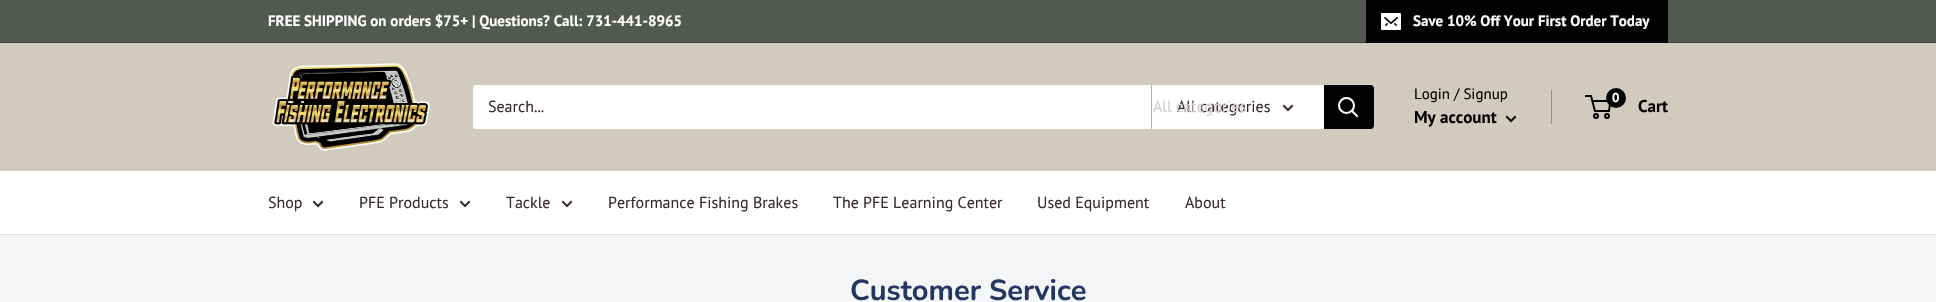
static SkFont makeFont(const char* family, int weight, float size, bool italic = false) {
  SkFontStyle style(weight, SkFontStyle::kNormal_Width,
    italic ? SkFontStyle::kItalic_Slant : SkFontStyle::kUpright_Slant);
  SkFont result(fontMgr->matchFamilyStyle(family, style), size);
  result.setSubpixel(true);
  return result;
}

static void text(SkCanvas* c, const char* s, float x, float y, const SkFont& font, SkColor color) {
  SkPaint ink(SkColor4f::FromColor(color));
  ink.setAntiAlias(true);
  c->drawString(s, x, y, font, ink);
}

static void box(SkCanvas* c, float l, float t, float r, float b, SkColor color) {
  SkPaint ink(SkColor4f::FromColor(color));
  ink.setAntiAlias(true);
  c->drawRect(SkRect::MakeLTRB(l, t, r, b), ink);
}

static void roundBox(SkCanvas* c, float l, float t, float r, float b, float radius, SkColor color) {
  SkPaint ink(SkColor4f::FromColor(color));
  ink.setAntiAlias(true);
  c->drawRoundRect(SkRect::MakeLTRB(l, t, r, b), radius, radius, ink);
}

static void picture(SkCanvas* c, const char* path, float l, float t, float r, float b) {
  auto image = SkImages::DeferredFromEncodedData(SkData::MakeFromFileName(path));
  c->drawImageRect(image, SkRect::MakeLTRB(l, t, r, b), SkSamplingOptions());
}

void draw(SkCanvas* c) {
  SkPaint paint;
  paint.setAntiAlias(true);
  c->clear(0xfff3f5f6);
  box(c, 0, 0, 1936, 42, 0xff535951);
  box(c, 0, 42, 1936, 43, 0xff3b3f39);
  SkFont face1 = makeFont("PT Sans", 700, 15);
  text(c, "FREE SHIPPING on orders $75+ | Questions? Call: 731-441-8965", 268, 26, face1, 0xffffffff);
  box(c, 1366, 0, 1668, 43, 0xff020202);
  picture(c, "img_01.png", 1381, 13, 1401, 30);
  text(c, "Save 10% Off Your First Order Today", 1413, 26, face1, 0xffffffff);
  box(c, 0, 43, 1936, 171, 0xffd1cbbd);
  picture(c, "img_02.png", 272, 63, 430, 151);
  roundBox(c, 473, 85, 1374, 129, 3, 0xffffffff);
  SkFont face2 = makeFont("PT Sans", 400, 16);
  text(c, "Search...", 488, 112, face2, 0xff3a2a2f);
  box(c, 1151, 85, 1152, 129, 0xffb3b3b3);
  text(c, "All categories", 1177, 112, face2, 0xff3a2a2f);
  text(c, "All categories", 1153, 112, face2, 0xffd4d0d1);
  paint.setStyle(SkPaint::kStroke_Style);
  paint.setStrokeWidth(2);
  paint.setStrokeCap(SkPaint::kSquare_Cap);
  paint.setColor(0xff3a2a2f);
  c->drawPath(SkPathBuilder().moveTo(1292, 106).lineTo(1288, 110).lineTo(1284, 106).detach(), paint);
  paint.setStyle(SkPaint::kFill_Style);
  paint.setColor(0xff020202);
  c->drawPath(SkPathBuilder().moveTo(1324, 85).lineTo(1371, 85).cubicTo(1372.5f, 85, 1374, 86.5f, 1374, 88).lineTo(1374, 126).cubicTo(1374, 127.5f, 1372.5f, 129, 1371, 129).lineTo(1324, 129).close().detach(), paint);
  paint.setStyle(SkPaint::kStroke_Style);
  paint.setColor(0xffffffff);
  c->drawPath(SkPathBuilder().moveTo(1357, 116).lineTo(1352, 111).detach(), paint);
  paint.setStrokeCap(SkPaint::kButt_Cap);
  c->drawCircle(1346.5f, 105.5f, 7.5f, paint);
  SkFont face3 = makeFont("PT Sans", 400, 15);
  text(c, "Login / Signup", 1414, 99, face3, 0xff020202);
  box(c, 1551, 90, 1552, 124, 0xff938f85);
  SkFont face4 = makeFont("PT Sans", 700, 17);
  text(c, "My account", 1414, 123, face4, 0xff020202);
  paint.setStrokeCap(SkPaint::kSquare_Cap);
  paint.setColor(0xff020202);
  c->drawPath(SkPathBuilder().moveTo(1515, 117).lineTo(1511, 121).lineTo(1507, 117).detach(), paint);
  paint.setStrokeCap(SkPaint::kButt_Cap);
  c->drawCircle(1596, 116, 2, paint);
  c->drawCircle(1607, 116, 2, paint);
  c->drawPath(SkPathBuilder().moveTo(1592.5f, 101).lineTo(1610.5f, 101).lineTo(1609, 111).lineTo(1595, 111).lineTo(1591, 96).lineTo(1585, 96).detach(), paint);
  paint.setStyle(SkPaint::kFill_Style);
  c->drawCircle(1616, 98, 10, paint);
  SkFont face5 = makeFont("PT Sans", 700, 13);
  text(c, "0", 1612, 102, face5, 0xffffffff);
  text(c, "Cart", 1638, 112, face4, 0xff020202);
  box(c, 0, 171, 1936, 234, 0xffffffff);
  box(c, 0, 234, 1936, 235, 0xffe7e2de);
  text(c, "Shop", 268, 208, face2, 0xff3a2a2f);
  paint.setStyle(SkPaint::kStroke_Style);
  paint.setStrokeCap(SkPaint::kSquare_Cap);
  paint.setColor(0xff3a2a2f);
  c->drawPath(SkPathBuilder().moveTo(322, 202).lineTo(318, 206).lineTo(314, 202).detach(), paint);
  text(c, "PFE Products", 359, 208, face2, 0xff3a2a2f);
  c->drawPath(SkPathBuilder().moveTo(469, 202).lineTo(465, 206).lineTo(461, 202).detach(), paint);
  text(c, "Tackle", 506, 208, face2, 0xff3a2a2f);
  c->drawPath(SkPathBuilder().moveTo(571, 202).lineTo(567, 206).lineTo(563, 202).detach(), paint);
  text(c, "Performance Fishing Brakes", 608, 208, face2, 0xff3a2a2f);
  text(c, "The PFE Learning Center", 833, 208, face2, 0xff3a2a2f);
  text(c, "Used Equipment", 1037, 208, face2, 0xff3a2a2f);
  text(c, "About", 1185, 208, face2, 0xff3a2a2f);
  SkFont face6 = makeFont("Nunito", 700, 29);
  text(c, "Customer Service", 850, 300, face6, 0xff243763);
}
